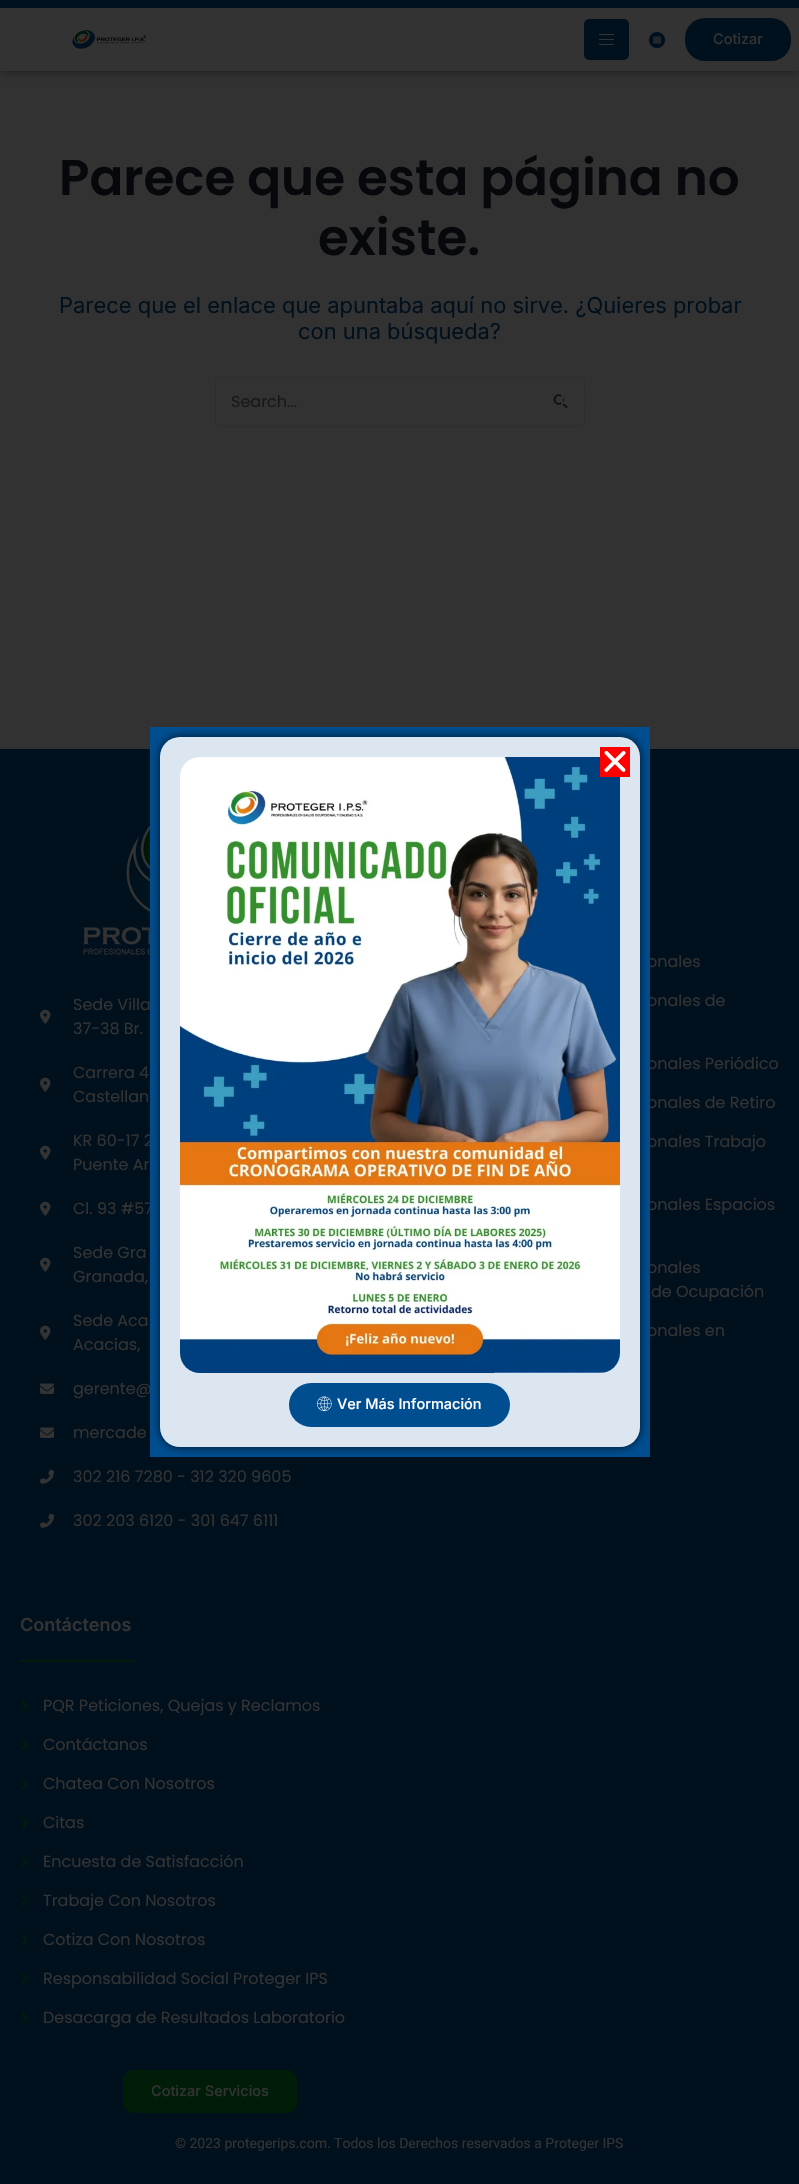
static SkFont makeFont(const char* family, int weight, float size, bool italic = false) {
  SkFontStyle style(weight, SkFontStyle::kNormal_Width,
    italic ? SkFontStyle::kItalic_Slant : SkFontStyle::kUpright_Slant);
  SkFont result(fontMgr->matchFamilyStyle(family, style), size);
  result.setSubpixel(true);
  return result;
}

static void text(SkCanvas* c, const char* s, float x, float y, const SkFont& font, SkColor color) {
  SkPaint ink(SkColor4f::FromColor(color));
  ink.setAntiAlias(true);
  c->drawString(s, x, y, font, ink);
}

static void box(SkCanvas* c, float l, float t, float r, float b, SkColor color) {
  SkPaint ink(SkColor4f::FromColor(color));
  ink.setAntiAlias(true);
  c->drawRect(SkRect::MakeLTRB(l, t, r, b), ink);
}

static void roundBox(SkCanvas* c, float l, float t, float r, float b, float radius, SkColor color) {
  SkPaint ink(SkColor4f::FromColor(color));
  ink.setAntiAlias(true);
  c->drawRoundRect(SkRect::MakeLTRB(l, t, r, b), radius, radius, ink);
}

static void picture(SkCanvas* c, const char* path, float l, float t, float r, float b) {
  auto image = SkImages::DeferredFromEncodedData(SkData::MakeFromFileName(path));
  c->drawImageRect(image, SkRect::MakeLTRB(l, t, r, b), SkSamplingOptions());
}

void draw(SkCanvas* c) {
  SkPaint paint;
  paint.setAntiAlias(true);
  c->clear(0xff323232);
  paint.setColor(0x80000000);
  paint.setMaskFilter(SkMaskFilter::MakeBlur(kNormal_SkBlurStyle, 5));
  c->drawRect(SkRect::MakeLTRB(0, 0, 799, 71), paint);
  paint.setMaskFilter(nullptr);
  box(c, 0, 8, 799, 71, 0xff333333);
  box(c, 0, 0, 799, 8, 0xff00101d);
  picture(c, "img_01.png", 72, 30, 147, 49);
  roundBox(c, 584, 19, 629, 60, 5, 0xff00101d);
  box(c, 599, 34, 614, 35, 0xff333333);
  box(c, 599, 39, 614, 40, 0xff333333);
  box(c, 599, 44, 614, 45, 0xff333333);
  picture(c, "img_02.png", 649, 32, 666, 49);
  roundBox(c, 685, 18, 791, 61, 20, 0xff00101d);
  SkFont face1 = makeFont("Inter", 500, 14.5f);
  text(c, "Cotizar", 713, 44, face1, 0xff333333);
  SkFont face2 = makeFont("Poppins", 600, 50);
  text(c, "Parece que esta página no", 59, 195, face2, 0xff06080c);
  text(c, "existe.", 318, 255, face2, 0xff06080c);
  SkFont face3 = makeFont("Inter", 400, 21.9f);
  text(c, "Parece que el enlace que apuntaba aquí no sirve. ¿Quieres probar", 59, 313, face3, 0xff00101d);
  text(c, "con una búsqueda?", 298, 339, face3, 0xff00101d);
  paint.setStyle(SkPaint::kStroke_Style);
  paint.setStrokeWidth(1);
  paint.setColor(0xff2d2d2d);
  c->drawRoundRect(SkRect::MakeLTRB(215.5f, 377.5f, 584.5f, 426.5f), 4.5f, 4.5f, paint);
  SkFont face4 = makeFont("Poppins", 400, 16);
  text(c, "Search...", 231, 407, face4, 0xff171717);
  picture(c, "img_03.png", 553, 394, 568, 409);
  c->save();
  c->clipPath(SkPathBuilder().moveTo(542, 377).lineTo(583, 377).cubicTo(584, 377, 585, 378, 585, 379).lineTo(585, 417).cubicTo(585, 418, 584, 419, 583, 419).lineTo(542, 419).cubicTo(541, 419, 540, 418, 540, 417).lineTo(540, 379).cubicTo(540, 378, 541, 377, 542, 377).close().detach(), true);
  SkFont face5 = makeFont("Inter", 500, 16);
  text(c, "Bus", 560, 404, face5, 0xff333333);
  c->restore();
  box(c, 0, 749, 799, 2184, 0xff00101d);
  picture(c, "img_04.png", 83, 825, 150, 955);
  picture(c, "img_05.png", 40, 1009, 51, 1024);
  text(c, "Sede Villa", 73, 1010, face4, 0xff333333);
  text(c, "37-38 Br.", 73, 1034, face4, 0xff333333);
  picture(c, "img_05.png", 40, 1077, 51, 1092);
  text(c, "Carrera 4", 73, 1078, face4, 0xff333333);
  text(c, "Castellan", 73, 1102, face4, 0xff333333);
  picture(c, "img_05.png", 40, 1145, 51, 1160);
  text(c, "KR 60-17 2", 73, 1146, face4, 0xff333333);
  text(c, "Puente Ar", 73, 1170, face4, 0xff333333);
  picture(c, "img_05.png", 40, 1201, 51, 1216);
  text(c, "Cl. 93 #57", 73, 1214, face4, 0xff333333);
  picture(c, "img_05.png", 40, 1257, 51, 1272);
  text(c, "Sede Gra", 73, 1258, face4, 0xff333333);
  text(c, "Granada,", 73, 1282, face4, 0xff333333);
  picture(c, "img_05.png", 40, 1325, 51, 1340);
  text(c, "Sede Aca", 73, 1326, face4, 0xff333333);
  text(c, "Acacias,", 73, 1350, face4, 0xff333333);
  picture(c, "img_06.png", 40, 1383, 54, 1394);
  text(c, "gerente@", 73, 1394, face4, 0xff333333);
  picture(c, "img_06.png", 40, 1427, 54, 1438);
  text(c, "mercade", 73, 1438, face4, 0xff333333);
  picture(c, "img_07.png", 40, 1469, 54, 1484);
  text(c, "302 216 7280 - 312 320 9605", 73, 1482, face4, 0xff333333);
  picture(c, "img_07.png", 40, 1513, 54, 1528);
  text(c, "302 203 6120 - 301 647 6111", 73, 1526, face4, 0xff333333);
  text(c, "onales", 647, 967, face4, 0xff333333);
  text(c, "onales de", 647, 1006, face4, 0xff333333);
  text(c, "onales Periódico", 647, 1069, face4, 0xff333333);
  text(c, "onales de Retiro", 647, 1108, face4, 0xff333333);
  text(c, "onales Trabajo", 647, 1147, face4, 0xff333333);
  text(c, "onales Espacios", 647, 1210, face4, 0xff333333);
  text(c, "onales", 647, 1273, face4, 0xff333333);
  text(c, "de Ocupación", 651, 1297, face4, 0xff333333);
  text(c, "onales en", 647, 1336, face4, 0xff333333);
  SkFont face6 = makeFont("Inter", 600, 18);
  text(c, "Contáctenos", 20, 1631, face6, 0xff333333);
  box(c, 20, 1660, 134, 1662, 0xff001d08);
  picture(c, "img_08.png", 21, 1700, 28, 1711);
  text(c, "PQR Peticiones, Quejas y Reclamos", 43, 1711, face4, 0xff333333);
  picture(c, "img_08.png", 21, 1739, 28, 1750);
  text(c, "Contáctanos", 43, 1750, face4, 0xff333333);
  picture(c, "img_08.png", 21, 1778, 28, 1789);
  text(c, "Chatea Con Nosotros", 43, 1789, face4, 0xff333333);
  picture(c, "img_08.png", 21, 1817, 28, 1828);
  text(c, "Citas", 43, 1828, face4, 0xff333333);
  picture(c, "img_08.png", 21, 1856, 28, 1867);
  text(c, "Encuesta de Satisfacción", 43, 1867, face4, 0xff333333);
  picture(c, "img_08.png", 21, 1895, 28, 1906);
  text(c, "Trabaje Con Nosotros", 43, 1906, face4, 0xff333333);
  picture(c, "img_08.png", 21, 1934, 28, 1945);
  text(c, "Cotiza Con Nosotros", 43, 1945, face4, 0xff333333);
  picture(c, "img_08.png", 21, 1973, 28, 1984);
  text(c, "Responsabilidad Social Proteger IPS", 43, 1984, face4, 0xff333333);
  picture(c, "img_08.png", 21, 2012, 28, 2023);
  text(c, "Desacarga de Resultados Laboratorio", 43, 2023, face4, 0xff333333);
  roundBox(c, 123, 2070, 297, 2113, 10, 0xff001d08);
  text(c, "Cotizar Servicios", 151, 2096, face1, 0xff333333);
  SkFont face7 = makeFont("Heebo", 400, 14);
  text(c, "© 2023 protegerips.com. Todos los Derechos reservados a Proteger IPS", 175, 2148, face7, 0xff333333);
  box(c, 150, 727, 650, 1457, 0xff004e90);
  c->save();
  c->clipPath(SkPathBuilder(SkPathFillType::kEvenOdd).moveTo(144, 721).lineTo(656, 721).lineTo(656, 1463).lineTo(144, 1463).close().moveTo(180, 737).lineTo(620, 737).cubicTo(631, 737, 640, 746, 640, 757).lineTo(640, 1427).cubicTo(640, 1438, 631, 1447, 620, 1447).lineTo(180, 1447).cubicTo(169, 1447, 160, 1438, 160, 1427).lineTo(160, 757).cubicTo(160, 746, 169, 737, 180, 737).close().detach(), true);
  paint.setStyle(SkPaint::kFill_Style);
  paint.setColor(0xbf000000);
  paint.setMaskFilter(SkMaskFilter::MakeBlur(kNormal_SkBlurStyle, 5));
  c->drawRoundRect(SkRect::MakeLTRB(160, 737, 640, 1447), 20, 20, paint);
  paint.setMaskFilter(nullptr);
  c->restore();
  roundBox(c, 160, 737, 640, 1447, 20, 0xdbffffff);
  picture(c, "img_10.png", 180, 757, 620, 1373);
  box(c, 600, 747, 630, 777, 0xffff0000);
  picture(c, "img_09.png", 604, 750, 626, 772);
  roundBox(c, 289, 1383, 510, 1427, 22, 0xff004e90);
  picture(c, "img_11.png", 317, 1396, 332, 1412);
  text(c, "Ver Más Información", 337, 1409, face1, 0xffffffff);
}
